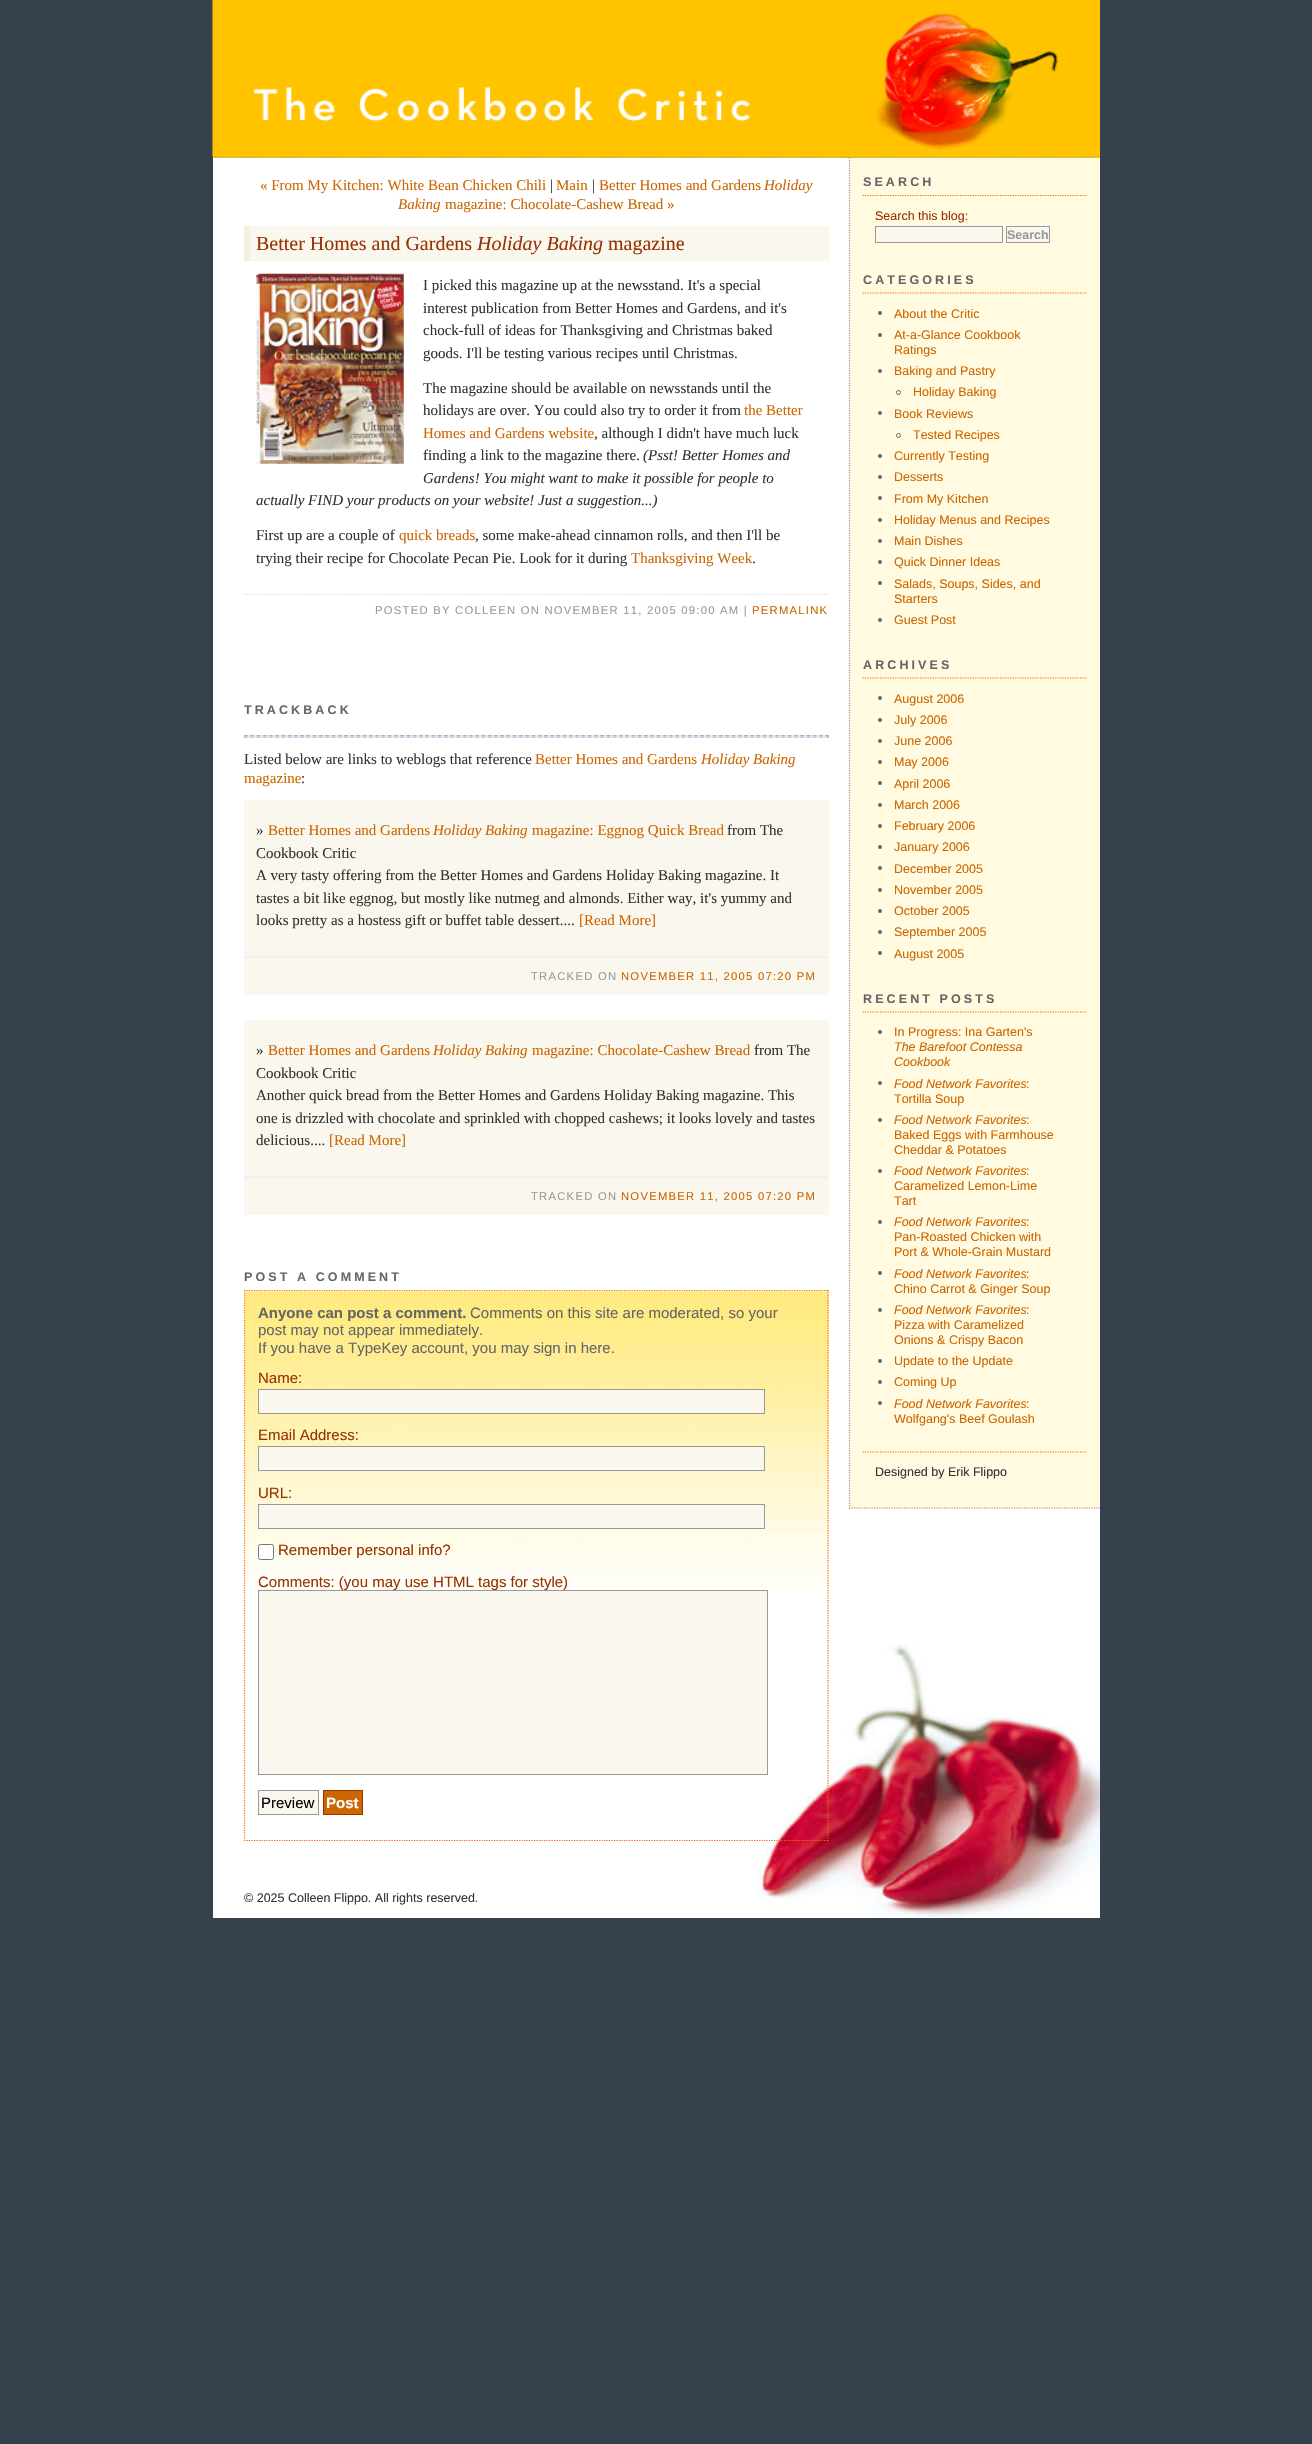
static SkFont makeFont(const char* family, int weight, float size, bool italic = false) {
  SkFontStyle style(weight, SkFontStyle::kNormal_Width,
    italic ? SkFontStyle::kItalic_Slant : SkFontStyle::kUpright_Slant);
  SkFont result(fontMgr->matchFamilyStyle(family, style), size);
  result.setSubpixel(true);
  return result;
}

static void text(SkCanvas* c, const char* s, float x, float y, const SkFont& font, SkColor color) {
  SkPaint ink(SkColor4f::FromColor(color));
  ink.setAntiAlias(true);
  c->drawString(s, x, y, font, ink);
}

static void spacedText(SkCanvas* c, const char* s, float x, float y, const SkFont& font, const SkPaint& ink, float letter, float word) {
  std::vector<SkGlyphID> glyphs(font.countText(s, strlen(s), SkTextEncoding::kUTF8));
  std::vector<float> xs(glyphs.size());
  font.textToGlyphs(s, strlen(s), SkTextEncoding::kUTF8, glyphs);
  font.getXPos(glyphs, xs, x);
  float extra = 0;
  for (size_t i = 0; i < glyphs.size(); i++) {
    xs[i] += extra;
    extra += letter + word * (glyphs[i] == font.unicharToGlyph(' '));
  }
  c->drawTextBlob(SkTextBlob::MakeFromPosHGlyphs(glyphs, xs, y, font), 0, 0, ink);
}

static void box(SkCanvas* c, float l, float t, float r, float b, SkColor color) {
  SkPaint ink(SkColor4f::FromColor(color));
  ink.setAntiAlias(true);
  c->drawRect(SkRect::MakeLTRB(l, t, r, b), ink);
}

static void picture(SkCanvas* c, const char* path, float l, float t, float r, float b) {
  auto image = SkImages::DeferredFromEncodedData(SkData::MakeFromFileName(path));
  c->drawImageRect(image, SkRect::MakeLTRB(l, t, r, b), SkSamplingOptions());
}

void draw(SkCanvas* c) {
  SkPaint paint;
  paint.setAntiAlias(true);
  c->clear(0xff36414d);
  box(c, 213, 158, 1100, 1918, 0xffffffff);
  picture(c, "img_01.png", 756, 1644, 1100, 1918);
  box(c, 213, 156, 1100, 158, 0xffffcc00);
  picture(c, "img_02.png", 212, 0, 1100, 157);
  paint.setStyle(SkPaint::kStroke_Style);
  paint.setStrokeWidth(1.2f);
  paint.setColor(0xff999999);
  paint.setPathEffect(SkDashPathEffect::Make({{1.25f, 1.25f}}, 0));
  c->drawPath(SkPathBuilder().moveTo(212.5f, 157).lineTo(1100, 157).detach(), paint);
  paint.setPathEffect(nullptr);
  SkFont face1 = makeFont("Liberation Serif", 400, 15);
  text(c, "« From My Kitchen: White Bean Chicken Chili", 260, 190, face1, 0xffcc6600);
  text(c, "|", 550, 190, face1, 0xff333333);
  text(c, "Main", 556, 190, face1, 0xffcc6600);
  text(c, "|", 592, 190, face1, 0xff333333);
  text(c, "Better Homes and Gardens", 599, 190, face1, 0xffcc6600);
  SkFont face2 = makeFont("Liberation Serif", 400, 15, true);
  text(c, "Holiday", 764, 190, face2, 0xffcc6600);
  text(c, "Baking", 398, 209, face2, 0xffcc6600);
  text(c, "magazine: Chocolate-Cashew Bread »", 445, 209, face1, 0xffcc6600);
  box(c, 250, 226, 829, 261, 0xfffaf7ee);
  box(c, 244, 226, 250, 261, 0xfff5f0de);
  SkFont face3 = makeFont("Liberation Serif", 400, 20);
  text(c, "Better Homes and Gardens", 256, 250, face3, 0xff993300);
  SkFont face4 = makeFont("Liberation Serif", 400, 20, true);
  text(c, "Holiday Baking", 477, 250, face4, 0xff993300);
  text(c, "magazine", 608, 250, face3, 0xff993300);
  picture(c, "img_03.png", 256, 273, 404, 464);
  text(c, "I picked this magazine up at the newsstand. It's a special", 423, 290, face1, 0xff333333);
  text(c, "interest publication from Better Homes and Gardens, and it's", 423, 313, face1, 0xff333333);
  text(c, "chock-full of ideas for Thanksgiving and Christmas baked", 423, 335, face1, 0xff333333);
  text(c, "goods. I'll be testing various recipes until Christmas.", 423, 358, face1, 0xff333333);
  text(c, "The magazine should be available on newsstands until the", 423, 393, face1, 0xff333333);
  text(c, "holidays are over. You could also try to order it from", 423, 415, face1, 0xff333333);
  text(c, "the Better", 744, 415, face1, 0xffcc6600);
  text(c, "Homes and Gardens website", 423, 438, face1, 0xffcc6600);
  text(c, ", although I didn't have much luck", 594, 438, face1, 0xff333333);
  text(c, "finding a link to the magazine there.", 423, 460, face1, 0xff333333);
  text(c, "(Psst! Better Homes and", 643, 460, face2, 0xff333333);
  text(c, "Gardens! You might want to make it possible for people to", 423, 483, face2, 0xff333333);
  text(c, "actually FIND your products on your website! Just a suggestion...)", 256, 505, face2, 0xff333333);
  text(c, "First up are a couple of", 256, 540, face1, 0xff333333);
  text(c, "quick breads", 399, 540, face1, 0xffcc6600);
  text(c, ", some make-ahead cinnamon rolls, and then I'll be", 475, 540, face1, 0xff333333);
  text(c, "trying their recipe for Chocolate Pecan Pie. Look for it during", 256, 563, face1, 0xff333333);
  text(c, "Thanksgiving Week", 631, 563, face1, 0xffcc6600);
  text(c, ".", 752, 563, face1, 0xff333333);
  paint.setColor(0xffdae0e6);
  paint.setPathEffect(SkDashPathEffect::Make({{1.25f, 1.25f}}, 0));
  c->drawPath(SkPathBuilder().moveTo(244, 594.5f).lineTo(829, 594.5f).detach(), paint);
  paint.setPathEffect(nullptr);
  SkFont face5 = makeFont("Liberation Sans", 400, 11.25f);
  paint.setStyle(SkPaint::kFill_Style);
  paint.setColor(0xff999999);
  spacedText(c, "POSTED BY COLLEEN ON NOVEMBER 11, 2005 09:00 AM |", 375, 614, face5, paint, 1.25f, 0);
  paint.setColor(0xffcc6600);
  spacedText(c, "PERMALINK", 752, 614, face5, paint, 1.25f, 0);
  SkFont face6 = makeFont("Liberation Sans", 700, 12.5f);
  paint.setColor(0xff666666);
  spacedText(c, "TRACKBACK", 244, 714, face6, paint, 3.1f, 0);
  box(c, 244, 735, 829, 738, 0xffe6ecf2);
  paint.setStyle(SkPaint::kStroke_Style);
  paint.setColor(0xffa3b8cc);
  paint.setPathEffect(SkDashPathEffect::Make({{3.75f, 2.5f}}, 0));
  c->drawPath(SkPathBuilder().moveTo(244, 735.5f).lineTo(829, 735.5f).detach(), paint);
  paint.setPathEffect(nullptr);
  box(c, 828, 735, 829, 738, 0xffa3b8cc);
  paint.setPathEffect(SkDashPathEffect::Make({{3.75f, 2.5f}}, 0));
  c->drawPath(SkPathBuilder().moveTo(244, 737).lineTo(829, 737).detach(), paint);
  paint.setPathEffect(nullptr);
  box(c, 244, 735, 245, 738, 0xffa3b8cc);
  text(c, "Listed below are links to weblogs that reference", 244, 764, face1, 0xff333333);
  text(c, "Better Homes and Gardens", 535, 764, face1, 0xffcc6600);
  text(c, "Holiday Baking", 701, 764, face2, 0xffcc6600);
  text(c, "magazine", 244, 783, face1, 0xffcc6600);
  text(c, ":", 301, 783, face1, 0xff333333);
  box(c, 244, 800, 829, 995, 0xfffaf7ee);
  text(c, "»", 256, 835, face1, 0xff333333);
  text(c, "Better Homes and Gardens", 268, 835, face1, 0xffcc6600);
  text(c, "Holiday Baking", 433, 835, face2, 0xffcc6600);
  text(c, "magazine: Eggnog Quick Bread", 532, 835, face1, 0xffcc6600);
  text(c, "from The", 727, 835, face1, 0xff333333);
  text(c, "Cookbook Critic", 256, 858, face1, 0xff333333);
  text(c, "A very tasty offering from the Better Homes and Gardens Holiday Baking magazine. It", 256, 880, face1, 0xff333333);
  text(c, "tastes a bit like eggnog, but mostly like nutmeg and almonds. Either way, it's yummy and", 256, 903, face1, 0xff333333);
  text(c, "looks pretty as a hostess gift or buffet table dessert....", 256, 925, face1, 0xff333333);
  text(c, "[Read More]", 579, 925, face1, 0xffcc6600);
  paint.setColor(0xffdae0e6);
  paint.setPathEffect(SkDashPathEffect::Make({{1.25f, 1.25f}}, 0));
  c->drawPath(SkPathBuilder().moveTo(244, 957).lineTo(829, 957).detach(), paint);
  paint.setPathEffect(nullptr);
  paint.setStyle(SkPaint::kFill_Style);
  paint.setColor(0xff999999);
  spacedText(c, "TRACKED ON", 531, 980, face5, paint, 1.25f, 0);
  paint.setColor(0xffcc6600);
  spacedText(c, "NOVEMBER 11, 2005 07:20 PM", 621, 980, face5, paint, 1.25f, 0);
  box(c, 244, 1020, 829, 1215, 0xfffaf7ee);
  text(c, "»", 256, 1055, face1, 0xff333333);
  text(c, "Better Homes and Gardens", 268, 1055, face1, 0xffcc6600);
  text(c, "Holiday Baking", 433, 1055, face2, 0xffcc6600);
  text(c, "magazine: Chocolate-Cashew Bread", 532, 1055, face1, 0xffcc6600);
  text(c, "from The", 754, 1055, face1, 0xff333333);
  text(c, "Cookbook Critic", 256, 1078, face1, 0xff333333);
  text(c, "Another quick bread from the Better Homes and Gardens Holiday Baking magazine. This", 256, 1100, face1, 0xff333333);
  text(c, "one is drizzled with chocolate and sprinkled with chopped cashews; it looks lovely and tastes", 256, 1123, face1, 0xff333333);
  text(c, "delicious....", 256, 1145, face1, 0xff333333);
  text(c, "[Read More]", 329, 1145, face1, 0xffcc6600);
  paint.setStyle(SkPaint::kStroke_Style);
  paint.setColor(0xffdae0e6);
  paint.setPathEffect(SkDashPathEffect::Make({{1.25f, 1.25f}}, 0));
  c->drawPath(SkPathBuilder().moveTo(244, 1177).lineTo(829, 1177).detach(), paint);
  paint.setPathEffect(nullptr);
  paint.setStyle(SkPaint::kFill_Style);
  paint.setColor(0xff999999);
  spacedText(c, "TRACKED ON", 531, 1200, face5, paint, 1.25f, 0);
  paint.setColor(0xffcc6600);
  spacedText(c, "NOVEMBER 11, 2005 07:20 PM", 621, 1200, face5, paint, 1.25f, 0);
  paint.setColor(0xff666666);
  spacedText(c, "POST A COMMENT", 244, 1281, face6, paint, 3.1f, 0);
  picture(c, "img_04.png", 245, 1291, 829, 1592);
  paint.setStyle(SkPaint::kStroke_Style);
  paint.setColor(0xffff6600);
  paint.setPathEffect(SkDashPathEffect::Make({{1.25f, 1.25f}}, 0));
  c->drawPath(SkPathBuilder().moveTo(244, 1290.5f).lineTo(829, 1290.5f).detach(), paint);
  paint.setPathEffect(nullptr);
  paint.setPathEffect(SkDashPathEffect::Make({{1.25f, 1.25f}}, 0));
  c->drawPath(SkPathBuilder().moveTo(828, 1290).lineTo(828, 1841).detach(), paint);
  paint.setPathEffect(nullptr);
  c->save();
  c->clipRect(SkRect::MakeLTRB(244, 1265, 829, 1841));
  paint.setPathEffect(SkDashPathEffect::Make({{1.25f, 1.25f}}, 0));
  c->drawPath(SkPathBuilder().moveTo(244, 1840.5f).lineTo(829, 1840.5f).detach(), paint);
  paint.setPathEffect(nullptr);
  paint.setPathEffect(SkDashPathEffect::Make({{1.25f, 1.25f}}, 0));
  c->drawPath(SkPathBuilder().moveTo(244.5f, 1290).lineTo(244.5f, 1841).detach(), paint);
  paint.setPathEffect(nullptr);
  c->restore();
  SkFont face7 = makeFont("Liberation Sans", 700, 15);
  text(c, "Anyone can post a comment.", 258, 1318, face7, 0xff666666);
  SkFont face8 = makeFont("Liberation Sans", 400, 15);
  text(c, "Comments on this site are moderated, so your", 470, 1318, face8, 0xff666666);
  text(c, "post may not appear immediately.", 258, 1335, face8, 0xff666666);
  text(c, "If you have a TypeKey account, you may sign in here.", 258, 1353, face8, 0xff666666);
  text(c, "Name:", 258, 1383, face8, 0xff993300);
  paint.setStyle(SkPaint::kFill_Style);
  paint.setColor(0xfffaf7ee);
  c->drawRect(SkRect::MakeLTRB(258.5f, 1389.5f, 764.5f, 1413.5f), paint);
  paint.setStyle(SkPaint::kStroke_Style);
  paint.setStrokeWidth(1);
  paint.setColor(0xff999999);
  c->drawRect(SkRect::MakeLTRB(258.5f, 1389.5f, 764.5f, 1413.5f), paint);
  text(c, "Email Address:", 258, 1440, face8, 0xff993300);
  paint.setStyle(SkPaint::kFill_Style);
  paint.setColor(0xfffaf7ee);
  c->drawRect(SkRect::MakeLTRB(258.5f, 1446.5f, 764.5f, 1470.5f), paint);
  paint.setStyle(SkPaint::kStroke_Style);
  paint.setColor(0xff999999);
  c->drawRect(SkRect::MakeLTRB(258.5f, 1446.5f, 764.5f, 1470.5f), paint);
  text(c, "URL:", 258, 1498, face8, 0xff993300);
  paint.setStyle(SkPaint::kFill_Style);
  paint.setColor(0xfffaf7ee);
  c->drawRect(SkRect::MakeLTRB(258.5f, 1504.5f, 764.5f, 1528.5f), paint);
  paint.setStyle(SkPaint::kStroke_Style);
  paint.setColor(0xff999999);
  c->drawRect(SkRect::MakeLTRB(258.5f, 1504.5f, 764.5f, 1528.5f), paint);
  paint.setStyle(SkPaint::kFill_Style);
  paint.setColor(0xffffffff);
  c->drawRoundRect(SkRect::MakeLTRB(258.5f, 1544.5f, 273.5f, 1559.5f), 2, 2, paint);
  paint.setStyle(SkPaint::kStroke_Style);
  paint.setColor(0xff767676);
  c->drawRoundRect(SkRect::MakeLTRB(258.5f, 1544.5f, 273.5f, 1559.5f), 2, 2, paint);
  text(c, "Remember personal info?", 278, 1555, face8, 0xff993300);
  text(c, "Comments: (you may use HTML tags for style)", 258, 1587, face8, 0xff993300);
  paint.setStyle(SkPaint::kFill_Style);
  paint.setColor(0xfffaf7ee);
  c->drawRect(SkRect::MakeLTRB(258.5f, 1590.5f, 767.5f, 1774.5f), paint);
  paint.setStyle(SkPaint::kStroke_Style);
  paint.setColor(0xff999999);
  c->drawRect(SkRect::MakeLTRB(258.5f, 1590.5f, 767.5f, 1774.5f), paint);
  paint.setStyle(SkPaint::kFill_Style);
  paint.setColor(0xfffaf7ee);
  c->drawRect(SkRect::MakeLTRB(258.5f, 1790.5f, 318.5f, 1814.5f), paint);
  paint.setStyle(SkPaint::kStroke_Style);
  paint.setColor(0xff999999);
  c->drawRect(SkRect::MakeLTRB(258.5f, 1790.5f, 318.5f, 1814.5f), paint);
  text(c, "Preview", 261, 1808, face8, 0xff000000);
  paint.setStyle(SkPaint::kFill_Style);
  paint.setColor(0xffcc6600);
  c->drawRect(SkRect::MakeLTRB(323.5f, 1790.5f, 362.5f, 1814.5f), paint);
  paint.setStyle(SkPaint::kStroke_Style);
  paint.setColor(0xff993300);
  c->drawRect(SkRect::MakeLTRB(323.5f, 1790.5f, 362.5f, 1814.5f), paint);
  text(c, "Post", 326, 1808, face7, 0xffffffff);
  SkFont face9 = makeFont("Liberation Sans", 400, 12.5f);
  text(c, "© 2025 Colleen Flippo. All rights reserved.", 244, 1902, face9, 0xff333333);
  box(c, 849, 158, 1100, 1509, 0xfffffae0);
  paint.setStrokeWidth(1.2f);
  paint.setColor(0xff999999);
  paint.setPathEffect(SkDashPathEffect::Make({{1.25f, 1.25f}}, 0));
  c->drawPath(SkPathBuilder().moveTo(849, 1508).lineTo(1100, 1508).detach(), paint);
  paint.setPathEffect(nullptr);
  paint.setPathEffect(SkDashPathEffect::Make({{1.25f, 1.25f}}, 0));
  c->drawPath(SkPathBuilder().moveTo(849.5f, 157.5f).lineTo(849.5f, 1509).detach(), paint);
  paint.setPathEffect(nullptr);
  paint.setStyle(SkPaint::kFill_Style);
  paint.setColor(0xff666666);
  spacedText(c, "SEARCH", 863, 186, face6, paint, 3.1f, 0);
  paint.setStyle(SkPaint::kStroke_Style);
  paint.setColor(0xffff6600);
  paint.setPathEffect(SkDashPathEffect::Make({{1.25f, 1.25f}}, 0));
  c->drawPath(SkPathBuilder().moveTo(862.5f, 195.5f).lineTo(1087.5f, 195.5f).detach(), paint);
  paint.setPathEffect(nullptr);
  text(c, "Search this blog:", 875, 220, face9, 0xff993300);
  paint.setStyle(SkPaint::kFill_Style);
  paint.setColor(0xfffaf7ee);
  c->drawRect(SkRect::MakeLTRB(875.5f, 226.5f, 1002.5f, 242.5f), paint);
  paint.setStyle(SkPaint::kStroke_Style);
  paint.setStrokeWidth(1);
  paint.setColor(0xff999999);
  c->drawRect(SkRect::MakeLTRB(875.5f, 226.5f, 1002.5f, 242.5f), paint);
  paint.setStyle(SkPaint::kFill_Style);
  paint.setColor(0xfffaf7ee);
  c->drawRect(SkRect::MakeLTRB(1006.5f, 226.5f, 1049.5f, 242.5f), paint);
  paint.setStyle(SkPaint::kStroke_Style);
  paint.setColor(0xff999999);
  c->drawRect(SkRect::MakeLTRB(1006.5f, 226.5f, 1049.5f, 242.5f), paint);
  text(c, "Search", 1007, 239, face6, 0xff999999);
  paint.setStyle(SkPaint::kFill_Style);
  paint.setColor(0xff666666);
  spacedText(c, "CATEGORIES", 863, 284, face6, paint, 3.1f, 0);
  paint.setStyle(SkPaint::kStroke_Style);
  paint.setStrokeWidth(1.2f);
  paint.setColor(0xffff6600);
  paint.setPathEffect(SkDashPathEffect::Make({{1.25f, 1.25f}}, 0));
  c->drawPath(SkPathBuilder().moveTo(862.5f, 293).lineTo(1087.5f, 293).detach(), paint);
  paint.setPathEffect(nullptr);
  paint.setStyle(SkPaint::kFill_Style);
  paint.setColor(0xff666666);
  c->drawCircle(880, 313, 2, paint);
  text(c, "About the Critic", 894, 318, face9, 0xffcc6600);
  c->drawCircle(880, 335, 2, paint);
  text(c, "At-a-Glance Cookbook", 894, 339, face9, 0xffcc6600);
  text(c, "Ratings", 894, 354, face9, 0xffcc6600);
  c->drawCircle(880, 371, 2, paint);
  text(c, "Baking and Pastry", 894, 375, face9, 0xffcc6600);
  paint.setStyle(SkPaint::kStroke_Style);
  paint.setStrokeWidth(1);
  c->drawCircle(898.5f, 392.5f, 2, paint);
  text(c, "Holiday Baking", 913, 396, face9, 0xffcc6600);
  paint.setStyle(SkPaint::kFill_Style);
  c->drawCircle(880, 413, 2, paint);
  text(c, "Book Reviews", 894, 418, face9, 0xffcc6600);
  paint.setStyle(SkPaint::kStroke_Style);
  c->drawCircle(898.5f, 435.5f, 2, paint);
  text(c, "Tested Recipes", 913, 439, face9, 0xffcc6600);
  paint.setStyle(SkPaint::kFill_Style);
  c->drawCircle(880, 456, 2, paint);
  text(c, "Currently Testing", 894, 460, face9, 0xffcc6600);
  c->drawCircle(880, 477, 2, paint);
  text(c, "Desserts", 894, 481, face9, 0xffcc6600);
  c->drawCircle(880, 498, 2, paint);
  text(c, "From My Kitchen", 894, 503, face9, 0xffcc6600);
  c->drawCircle(880, 520, 2, paint);
  text(c, "Holiday Menus and Recipes", 894, 524, face9, 0xffcc6600);
  c->drawCircle(880, 541, 2, paint);
  text(c, "Main Dishes", 894, 545, face9, 0xffcc6600);
  c->drawCircle(880, 562, 2, paint);
  text(c, "Quick Dinner Ideas", 894, 566, face9, 0xffcc6600);
  c->drawCircle(880, 583, 2, paint);
  text(c, "Salads, Soups, Sides, and", 894, 588, face9, 0xffcc6600);
  text(c, "Starters", 894, 603, face9, 0xffcc6600);
  c->drawCircle(880, 620, 2, paint);
  text(c, "Guest Post", 894, 624, face9, 0xffcc6600);
  spacedText(c, "ARCHIVES", 863, 669, face6, paint, 3.1f, 0);
  paint.setStyle(SkPaint::kStroke_Style);
  paint.setStrokeWidth(1.2f);
  paint.setColor(0xffff6600);
  paint.setPathEffect(SkDashPathEffect::Make({{1.25f, 1.25f}}, 0));
  c->drawPath(SkPathBuilder().moveTo(862.5f, 678).lineTo(1087.5f, 678).detach(), paint);
  paint.setPathEffect(nullptr);
  paint.setStyle(SkPaint::kFill_Style);
  paint.setColor(0xff666666);
  c->drawCircle(880, 698, 2, paint);
  text(c, "August 2006", 894, 703, face9, 0xffcc6600);
  c->drawCircle(880, 720, 2, paint);
  text(c, "July 2006", 894, 724, face9, 0xffcc6600);
  c->drawCircle(880, 741, 2, paint);
  text(c, "June 2006", 894, 745, face9, 0xffcc6600);
  c->drawCircle(880, 762, 2, paint);
  text(c, "May 2006", 894, 766, face9, 0xffcc6600);
  c->drawCircle(880, 783, 2, paint);
  text(c, "April 2006", 894, 788, face9, 0xffcc6600);
  c->drawCircle(880, 805, 2, paint);
  text(c, "March 2006", 894, 809, face9, 0xffcc6600);
  c->drawCircle(880, 826, 2, paint);
  text(c, "February 2006", 894, 830, face9, 0xffcc6600);
  c->drawCircle(880, 847, 2, paint);
  text(c, "January 2006", 894, 851, face9, 0xffcc6600);
  c->drawCircle(880, 868, 2, paint);
  text(c, "December 2005", 894, 873, face9, 0xffcc6600);
  c->drawCircle(880, 890, 2, paint);
  text(c, "November 2005", 894, 894, face9, 0xffcc6600);
  c->drawCircle(880, 911, 2, paint);
  text(c, "October 2005", 894, 915, face9, 0xffcc6600);
  c->drawCircle(880, 932, 2, paint);
  text(c, "September 2005", 894, 936, face9, 0xffcc6600);
  c->drawCircle(880, 953, 2, paint);
  text(c, "August 2005", 894, 958, face9, 0xffcc6600);
  spacedText(c, "RECENT POSTS", 863, 1003, face6, paint, 3.1f, 0);
  paint.setStyle(SkPaint::kStroke_Style);
  paint.setColor(0xffff6600);
  paint.setPathEffect(SkDashPathEffect::Make({{1.25f, 1.25f}}, 0));
  c->drawPath(SkPathBuilder().moveTo(862.5f, 1012).lineTo(1087.5f, 1012).detach(), paint);
  paint.setPathEffect(nullptr);
  paint.setStyle(SkPaint::kFill_Style);
  paint.setColor(0xff666666);
  c->drawCircle(880, 1032, 2, paint);
  text(c, "In Progress: Ina Garten's", 894, 1036, face9, 0xffcc6600);
  SkFont face10 = makeFont("Liberation Sans", 400, 12.5f, true);
  text(c, "The Barefoot Contessa", 894, 1051, face10, 0xffcc6600);
  text(c, "Cookbook", 894, 1066, face10, 0xffcc6600);
  c->drawCircle(880, 1083, 2, paint);
  text(c, "Food Network Favorites", 894, 1088, face10, 0xffcc6600);
  text(c, ":", 1026, 1088, face9, 0xffcc6600);
  text(c, "Tortilla Soup", 894, 1103, face9, 0xffcc6600);
  c->drawCircle(880, 1120, 2, paint);
  text(c, "Food Network Favorites", 894, 1124, face10, 0xffcc6600);
  text(c, ":", 1026, 1124, face9, 0xffcc6600);
  text(c, "Baked Eggs with Farmhouse", 894, 1139, face9, 0xffcc6600);
  text(c, "Cheddar & Potatoes", 894, 1154, face9, 0xffcc6600);
  c->drawCircle(880, 1171, 2, paint);
  text(c, "Food Network Favorites", 894, 1175, face10, 0xffcc6600);
  text(c, ":", 1026, 1175, face9, 0xffcc6600);
  text(c, "Caramelized Lemon-Lime", 894, 1190, face9, 0xffcc6600);
  text(c, "Tart", 894, 1205, face9, 0xffcc6600);
  c->drawCircle(880, 1222, 2, paint);
  text(c, "Food Network Favorites", 894, 1226, face10, 0xffcc6600);
  text(c, ":", 1026, 1226, face9, 0xffcc6600);
  text(c, "Pan-Roasted Chicken with", 894, 1241, face9, 0xffcc6600);
  text(c, "Port & Whole-Grain Mustard", 894, 1256, face9, 0xffcc6600);
  c->drawCircle(880, 1273, 2, paint);
  text(c, "Food Network Favorites", 894, 1278, face10, 0xffcc6600);
  text(c, ":", 1026, 1278, face9, 0xffcc6600);
  text(c, "Chino Carrot & Ginger Soup", 894, 1293, face9, 0xffcc6600);
  c->drawCircle(880, 1310, 2, paint);
  text(c, "Food Network Favorites", 894, 1314, face10, 0xffcc6600);
  text(c, ":", 1026, 1314, face9, 0xffcc6600);
  text(c, "Pizza with Caramelized", 894, 1329, face9, 0xffcc6600);
  text(c, "Onions & Crispy Bacon", 894, 1344, face9, 0xffcc6600);
  c->drawCircle(880, 1361, 2, paint);
  text(c, "Update to the Update", 894, 1365, face9, 0xffcc6600);
  c->drawCircle(880, 1382, 2, paint);
  text(c, "Coming Up", 894, 1386, face9, 0xffcc6600);
  c->drawCircle(880, 1403, 2, paint);
  text(c, "Food Network Favorites", 894, 1408, face10, 0xffcc6600);
  text(c, ":", 1026, 1408, face9, 0xffcc6600);
  text(c, "Wolfgang's Beef Goulash", 894, 1423, face9, 0xffcc6600);
  paint.setStyle(SkPaint::kStroke_Style);
  paint.setColor(0xffff6600);
  paint.setPathEffect(SkDashPathEffect::Make({{1.25f, 1.25f}}, 0));
  c->drawPath(SkPathBuilder().moveTo(862.5f, 1452).lineTo(1087.5f, 1452).detach(), paint);
  paint.setPathEffect(nullptr);
  text(c, "Designed by Erik Flippo", 875, 1476, face9, 0xff333333);
}
